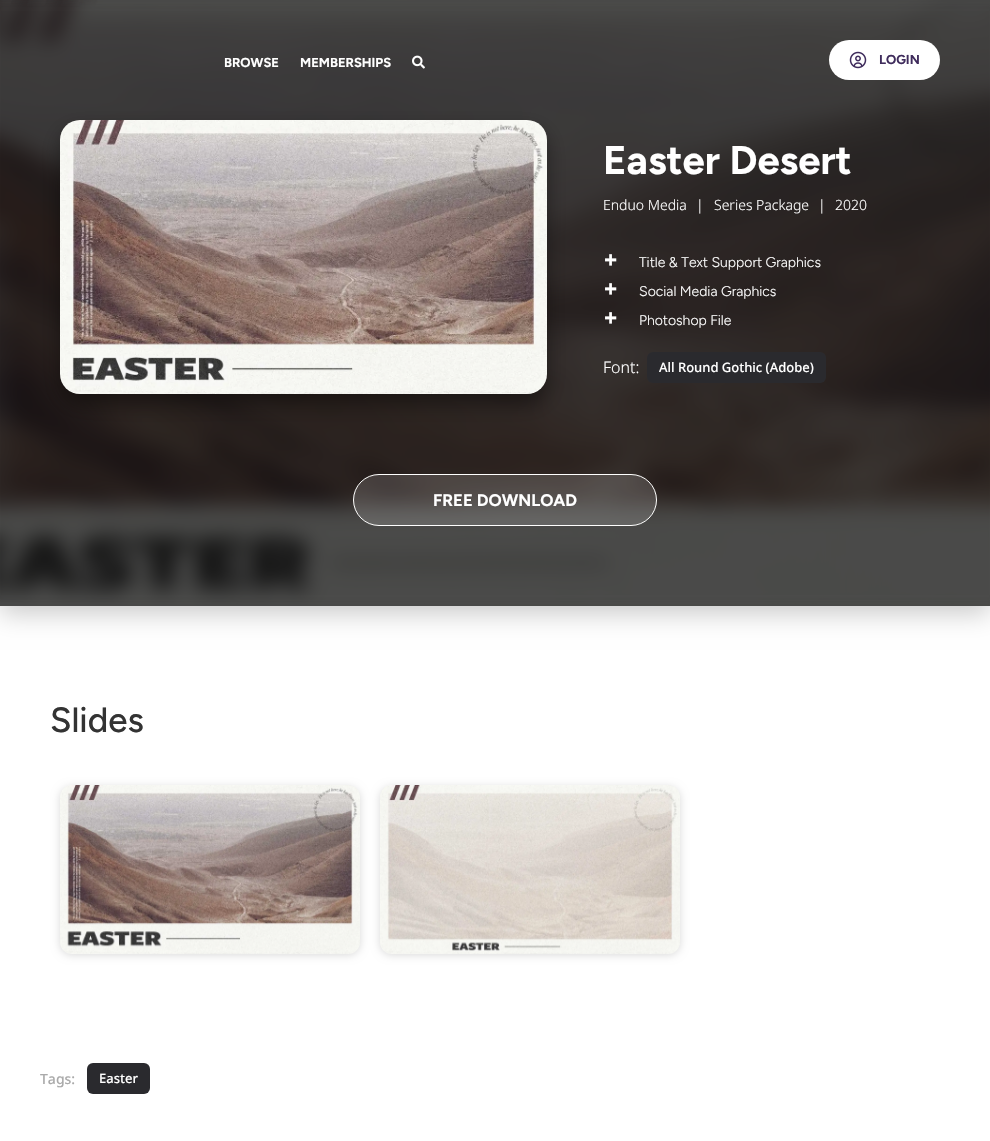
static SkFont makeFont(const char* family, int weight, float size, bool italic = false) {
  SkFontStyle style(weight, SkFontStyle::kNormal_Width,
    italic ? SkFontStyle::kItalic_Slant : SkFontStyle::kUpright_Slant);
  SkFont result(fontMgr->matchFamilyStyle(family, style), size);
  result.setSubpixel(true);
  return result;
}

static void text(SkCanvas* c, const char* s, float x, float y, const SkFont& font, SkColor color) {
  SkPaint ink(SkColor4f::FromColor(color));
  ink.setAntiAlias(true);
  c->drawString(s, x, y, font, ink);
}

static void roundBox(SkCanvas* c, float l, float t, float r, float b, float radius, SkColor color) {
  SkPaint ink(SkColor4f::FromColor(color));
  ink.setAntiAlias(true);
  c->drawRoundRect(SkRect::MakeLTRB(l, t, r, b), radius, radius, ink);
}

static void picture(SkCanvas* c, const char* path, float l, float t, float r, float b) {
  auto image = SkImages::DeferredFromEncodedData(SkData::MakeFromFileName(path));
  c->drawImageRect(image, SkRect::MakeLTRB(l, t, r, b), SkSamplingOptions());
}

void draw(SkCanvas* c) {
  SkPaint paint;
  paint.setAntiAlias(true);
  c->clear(0xffffffff);
  paint.setColor(0x33000000);
  paint.setMaskFilter(SkMaskFilter::MakeBlur(kNormal_SkBlurStyle, 12));
  c->drawRect(SkRect::MakeLTRB(0, 8, 990, 614), paint);
  paint.setMaskFilter(nullptr);
  picture(c, "img_03.png", 0, 0, 990, 606);
  picture(c, "img_04.png", 0, 0, 990, 606);
  SkFont face1 = makeFont("Figtree", 700, 13);
  text(c, "BROWSE", 224, 67, face1, 0xffffffff);
  text(c, "MEMBERSHIPS", 300, 67, face1, 0xffffffff);
  picture(c, "img_01.png", 412, 55, 425, 69);
  roundBox(c, 829, 40, 940, 80, 20, 0xffffffff);
  picture(c, "img_02.png", 849, 51, 867, 69);
  text(c, "LOGIN", 879, 64, face1, 0xff3f2c5c);
  paint.setColor(0x66000000);
  paint.setMaskFilter(SkMaskFilter::MakeBlur(kNormal_SkBlurStyle, 10));
  c->drawRoundRect(SkRect::MakeLTRB(60, 130, 547, 404), 20, 20, paint);
  paint.setMaskFilter(nullptr);
  picture(c, "img_05.png", 60, 120, 547, 394);
  SkFont face2 = makeFont("Figtree", 700, 40);
  text(c, "Easter Desert", 603, 174, face2, 0xffffffff);
  SkFont face3 = makeFont("Noto Sans", 300, 14);
  text(c, "Enduo Media", 603, 210, face3, 0xffffffff);
  text(c, "|", 696, 210, face3, 0xffffffff);
  text(c, "Series Package", 714, 210, face3, 0xffffffff);
  text(c, "|", 818, 210, face3, 0xffffffff);
  text(c, "2020", 835, 210, face3, 0xffffffff);
  SkFont face4 = makeFont("Figtree", 700, 24);
  text(c, "+", 603, 267, face4, 0xffffffff);
  SkFont face5 = makeFont("Figtree", 300, 14);
  text(c, "Title & Text Support Graphics", 639, 267, face5, 0xffffffff);
  text(c, "+", 603, 296, face4, 0xffffffff);
  text(c, "Social Media Graphics", 639, 296, face5, 0xffffffff);
  text(c, "+", 603, 325, face4, 0xffffffff);
  text(c, "Photoshop File", 639, 325, face5, 0xffffffff);
  SkFont face6 = makeFont("Noto Sans", 300, 16);
  text(c, "Font:", 603, 373, face6, 0xffffffff);
  roundBox(c, 647, 352, 826, 383, 6, 0xff2a2a2e);
  SkFont face7 = makeFont("Noto Sans", 500, 13);
  text(c, "All Round Gothic (Adobe)", 659, 372, face7, 0xffffffff);
  paint.setColor(0x26ffffff);
  c->drawRoundRect(SkRect::MakeLTRB(353.5f, 474.5f, 656.5f, 525.5f), 25.5f, 25.5f, paint);
  paint.setStyle(SkPaint::kStroke_Style);
  paint.setStrokeWidth(1);
  paint.setColor(0xfffffffe);
  c->drawRoundRect(SkRect::MakeLTRB(353.5f, 474.5f, 656.5f, 525.5f), 25.5f, 25.5f, paint);
  SkFont face8 = makeFont("Figtree", 700, 16.75f);
  text(c, "FREE DOWNLOAD", 433, 506, face8, 0xffffffff);
  SkFont face9 = makeFont("Figtree", 500, 35);
  text(c, "Slides", 50, 732, face9, 0xff333333);
  paint.setStyle(SkPaint::kFill_Style);
  paint.setColor(0x26000000);
  paint.setMaskFilter(SkMaskFilter::MakeBlur(kNormal_SkBlurStyle, 4));
  c->drawRoundRect(SkRect::MakeLTRB(60, 787, 360, 955), 12, 12, paint);
  paint.setMaskFilter(nullptr);
  picture(c, "img_06.png", 60, 785, 360, 954);
  paint.setMaskFilter(SkMaskFilter::MakeBlur(kNormal_SkBlurStyle, 4));
  c->drawRoundRect(SkRect::MakeLTRB(380, 787, 680, 955), 12, 12, paint);
  paint.setMaskFilter(nullptr);
  picture(c, "img_07.png", 380, 785, 680, 954);
  SkFont face10 = makeFont("Noto Sans", 500, 14);
  text(c, "Tags:", 40, 1084, face10, 0xffaaaaaa);
  roundBox(c, 87, 1063, 150, 1094, 6, 0xff2a2a2e);
  text(c, "Easter", 99, 1083, face7, 0xffffffff);
}
